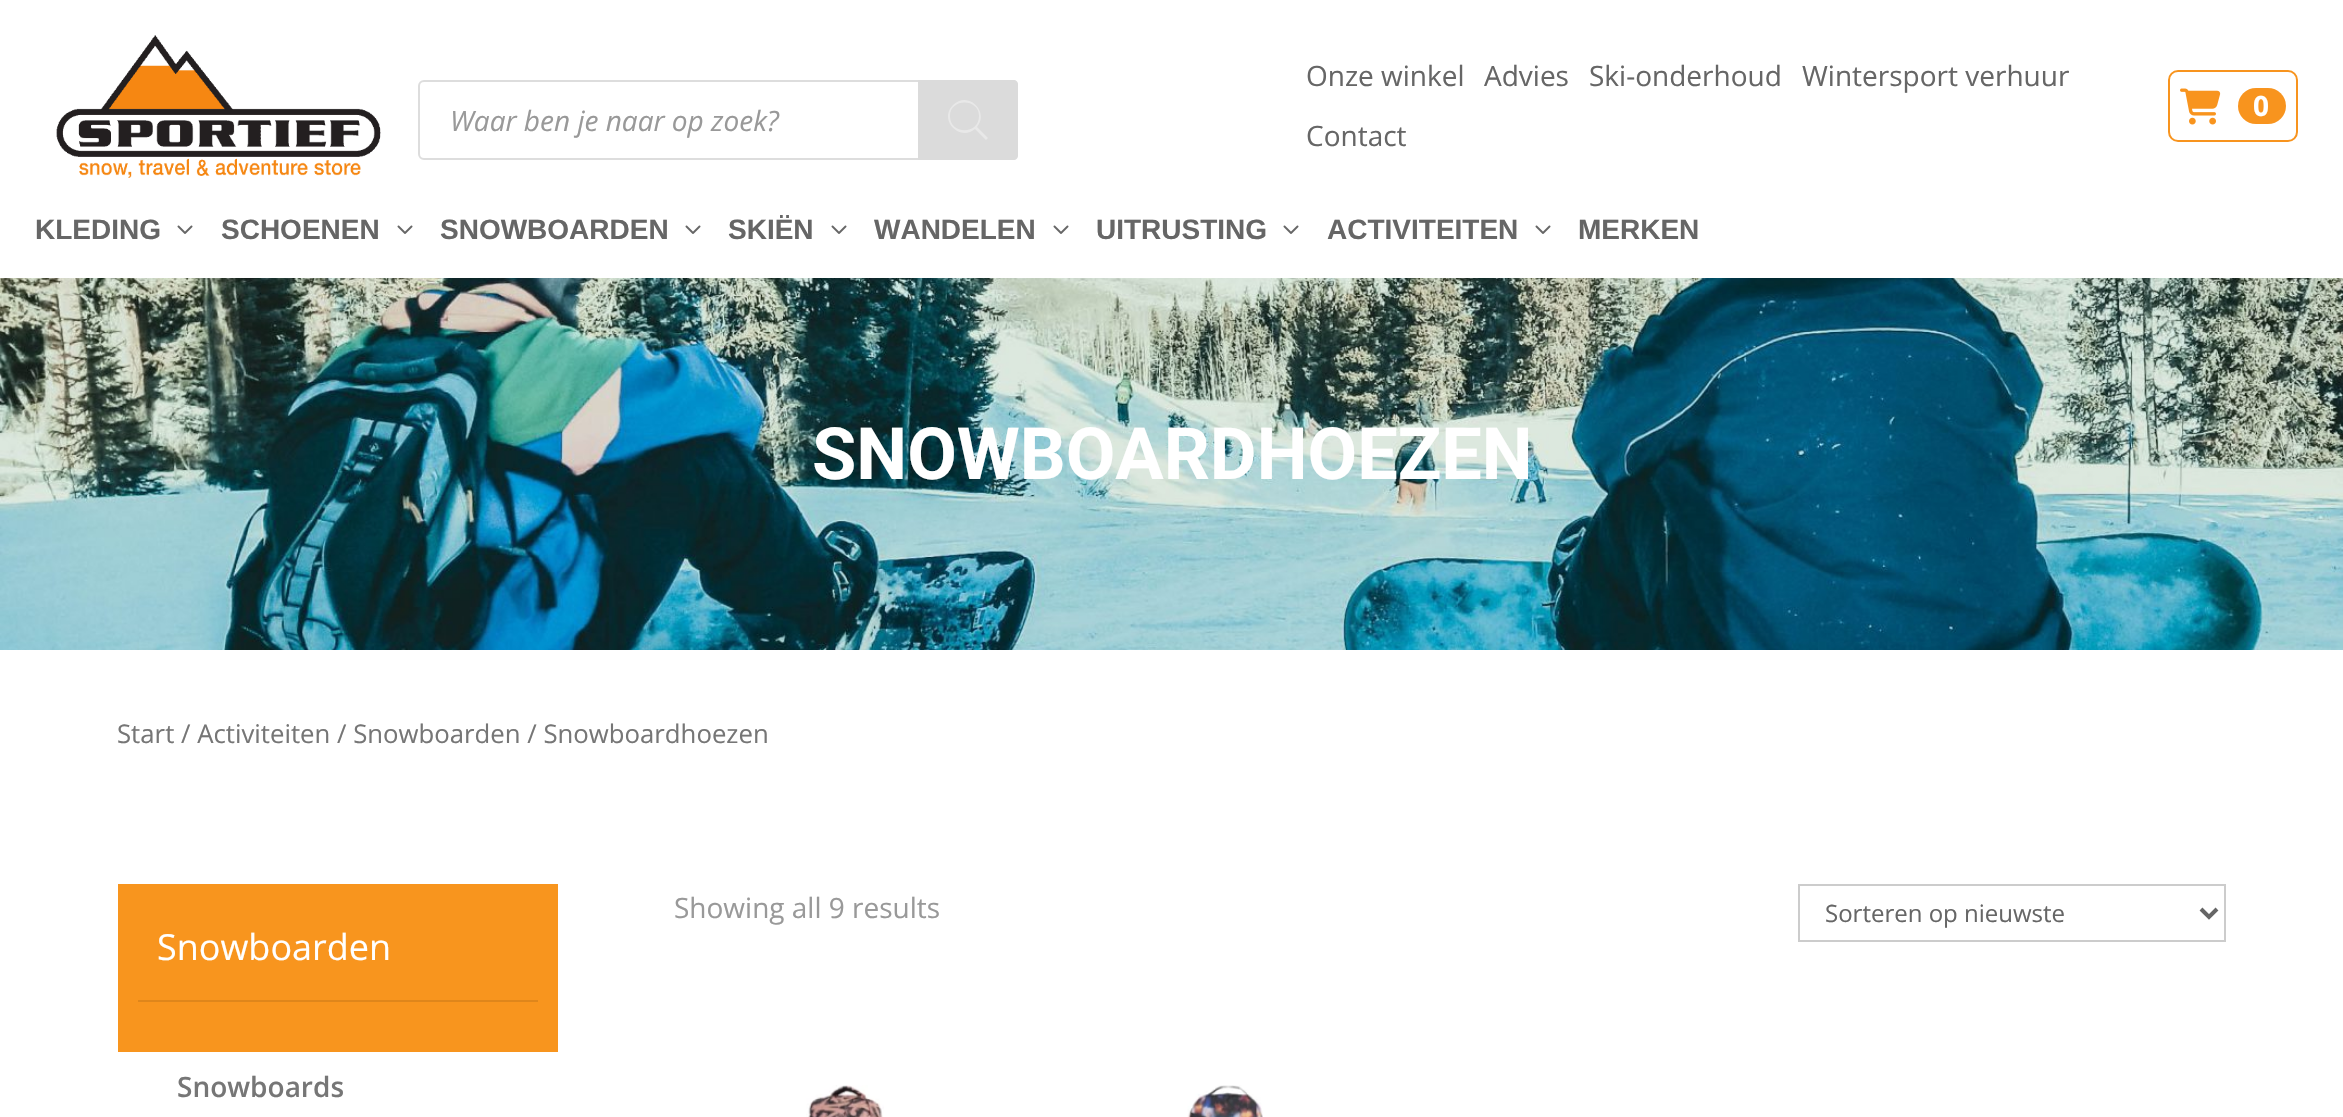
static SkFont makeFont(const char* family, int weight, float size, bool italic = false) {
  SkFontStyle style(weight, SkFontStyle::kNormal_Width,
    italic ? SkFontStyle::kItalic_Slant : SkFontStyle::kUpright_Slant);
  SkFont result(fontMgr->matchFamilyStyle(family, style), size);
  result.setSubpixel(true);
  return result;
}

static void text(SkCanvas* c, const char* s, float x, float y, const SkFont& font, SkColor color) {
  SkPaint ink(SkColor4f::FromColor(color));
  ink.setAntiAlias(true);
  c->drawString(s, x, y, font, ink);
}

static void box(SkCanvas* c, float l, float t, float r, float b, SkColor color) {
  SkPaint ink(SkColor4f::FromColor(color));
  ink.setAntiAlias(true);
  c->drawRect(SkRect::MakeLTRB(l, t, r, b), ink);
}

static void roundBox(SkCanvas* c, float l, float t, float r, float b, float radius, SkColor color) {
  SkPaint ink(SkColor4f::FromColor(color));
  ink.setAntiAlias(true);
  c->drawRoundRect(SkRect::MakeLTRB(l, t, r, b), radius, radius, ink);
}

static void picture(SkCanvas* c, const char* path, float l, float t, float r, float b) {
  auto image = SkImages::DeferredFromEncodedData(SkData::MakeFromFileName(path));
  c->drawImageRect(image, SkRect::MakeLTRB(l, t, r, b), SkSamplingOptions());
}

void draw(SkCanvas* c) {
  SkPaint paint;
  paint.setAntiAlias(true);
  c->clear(0xffffffff);
  picture(c, "img_01.png", 56, 35, 381, 178);
  paint.setStyle(SkPaint::kStroke_Style);
  paint.setStrokeWidth(2);
  paint.setColor(0xffdddddd);
  c->drawRoundRect(SkRect::MakeLTRB(419, 81, 1017, 159), 5, 5, paint);
  SkFont face1 = makeFont("Open Sans", 400, 28, true);
  text(c, "Waar ben je naar op zoek?", 450, 131, face1, 0xff999999);
  paint.setStyle(SkPaint::kFill_Style);
  paint.setColor(0xffdbdbdb);
  c->drawPath(SkPathBuilder().moveTo(918, 80).lineTo(1014, 80).cubicTo(1016, 80, 1018, 82, 1018, 84).lineTo(1018, 156).cubicTo(1018, 158, 1016, 160, 1014, 160).lineTo(918, 160).close().detach(), paint);
  paint.setColor(0xffe8e8e8);
  c->drawPath(SkPathBuilder().moveTo(988, 138).lineTo(977, 127).cubicTo(990, 112, 968, 90, 953, 105).cubicTo(938, 120, 960, 142, 975, 129).lineTo(986, 140).close().moveTo(950, 116).cubicTo(950, 98, 979, 98, 979, 116).cubicTo(979, 135, 950, 135, 950, 116).close().detach(), paint);
  SkFont face2 = makeFont("Open Sans", 400, 28);
  text(c, "Onze winkel", 1306, 86, face2, 0xff666666);
  text(c, "Advies", 1484, 86, face2, 0xff666666);
  text(c, "Ski-onderhoud", 1589, 86, face2, 0xff666666);
  text(c, "Wintersport verhuur", 1802, 86, face2, 0xff666666);
  text(c, "Contact", 1306, 146, face2, 0xff666666);
  paint.setStyle(SkPaint::kStroke_Style);
  paint.setColor(0xfff8941e);
  c->drawRoundRect(SkRect::MakeLTRB(2169, 71, 2297, 141), 9, 9, paint);
  picture(c, "img_02.png", 2180, 88, 2221, 125);
  roundBox(c, 2238, 88, 2286, 124, 18, 0xfff8941e);
  SkFont face3 = makeFont("Open Sans", 700, 28);
  text(c, "0", 2253, 116, face3, 0xffffffff);
  SkFont face4 = makeFont("Liberation Sans", 700, 28);
  text(c, "KLEDING", 35, 239, face4, 0xff666666);
  picture(c, "img_03.png", 177, 225, 193, 234);
  text(c, "SCHOENEN", 221, 239, face4, 0xff666666);
  picture(c, "img_03.png", 397, 225, 413, 234);
  text(c, "SNOWBOARDEN", 440, 239, face4, 0xff666666);
  picture(c, "img_03.png", 685, 225, 701, 234);
  text(c, "SKIËN", 728, 239, face4, 0xff666666);
  picture(c, "img_03.png", 831, 225, 847, 234);
  text(c, "WANDELEN", 874, 239, face4, 0xff666666);
  picture(c, "img_03.png", 1053, 225, 1069, 234);
  text(c, "UITRUSTING", 1096, 239, face4, 0xff666666);
  picture(c, "img_03.png", 1283, 225, 1299, 234);
  text(c, "ACTIVITEITEN", 1327, 239, face4, 0xff666666);
  picture(c, "img_03.png", 1535, 225, 1551, 234);
  text(c, "MERKEN", 1578, 239, face4, 0xff666666);
  picture(c, "img_04.png", 0, 278, 2343, 650);
  SkFont face5 = makeFont("Roboto", 700, 72);
  text(c, "SNOWBOARDHOEZEN", 812, 479, face5, 0xffffffff);
  SkFont face6 = makeFont("Open Sans", 400, 25.75f);
  text(c, "Start / Activiteiten / Snowboarden / Snowboardhoezen", 117, 743, face6, 0xff767676);
  text(c, "Showing all 9 results", 674, 918, face2, 0xff999999);
  paint.setColor(0xffcccccc);
  c->drawRect(SkRect::MakeLTRB(1799, 885, 2225, 941), paint);
  paint.setStrokeWidth(4);
  paint.setColor(0xff666666);
  c->drawPath(SkPathBuilder().moveTo(2201, 909).lineTo(2209, 917).lineTo(2217, 909).detach(), paint);
  SkFont face7 = makeFont("Open Sans", 400, 24);
  text(c, "Sorteren op nieuwste", 1825, 922, face7, 0xff666666);
  picture(c, "img_05.png", 806, 1085, 884, 1117);
  picture(c, "img_06.png", 1187, 1085, 1263, 1117);
  box(c, 118, 884, 558, 1052, 0xfff8951e);
  box(c, 138, 1000, 538, 1002, 0xffdf861b);
  SkFont face8 = makeFont("Open Sans", 400, 36);
  text(c, "Snowboarden", 157, 960, face8, 0xffffffff);
  SkFont face9 = makeFont("Open Sans", 600, 28);
  text(c, "Snowboards", 177, 1097, face9, 0xff767676);
}
